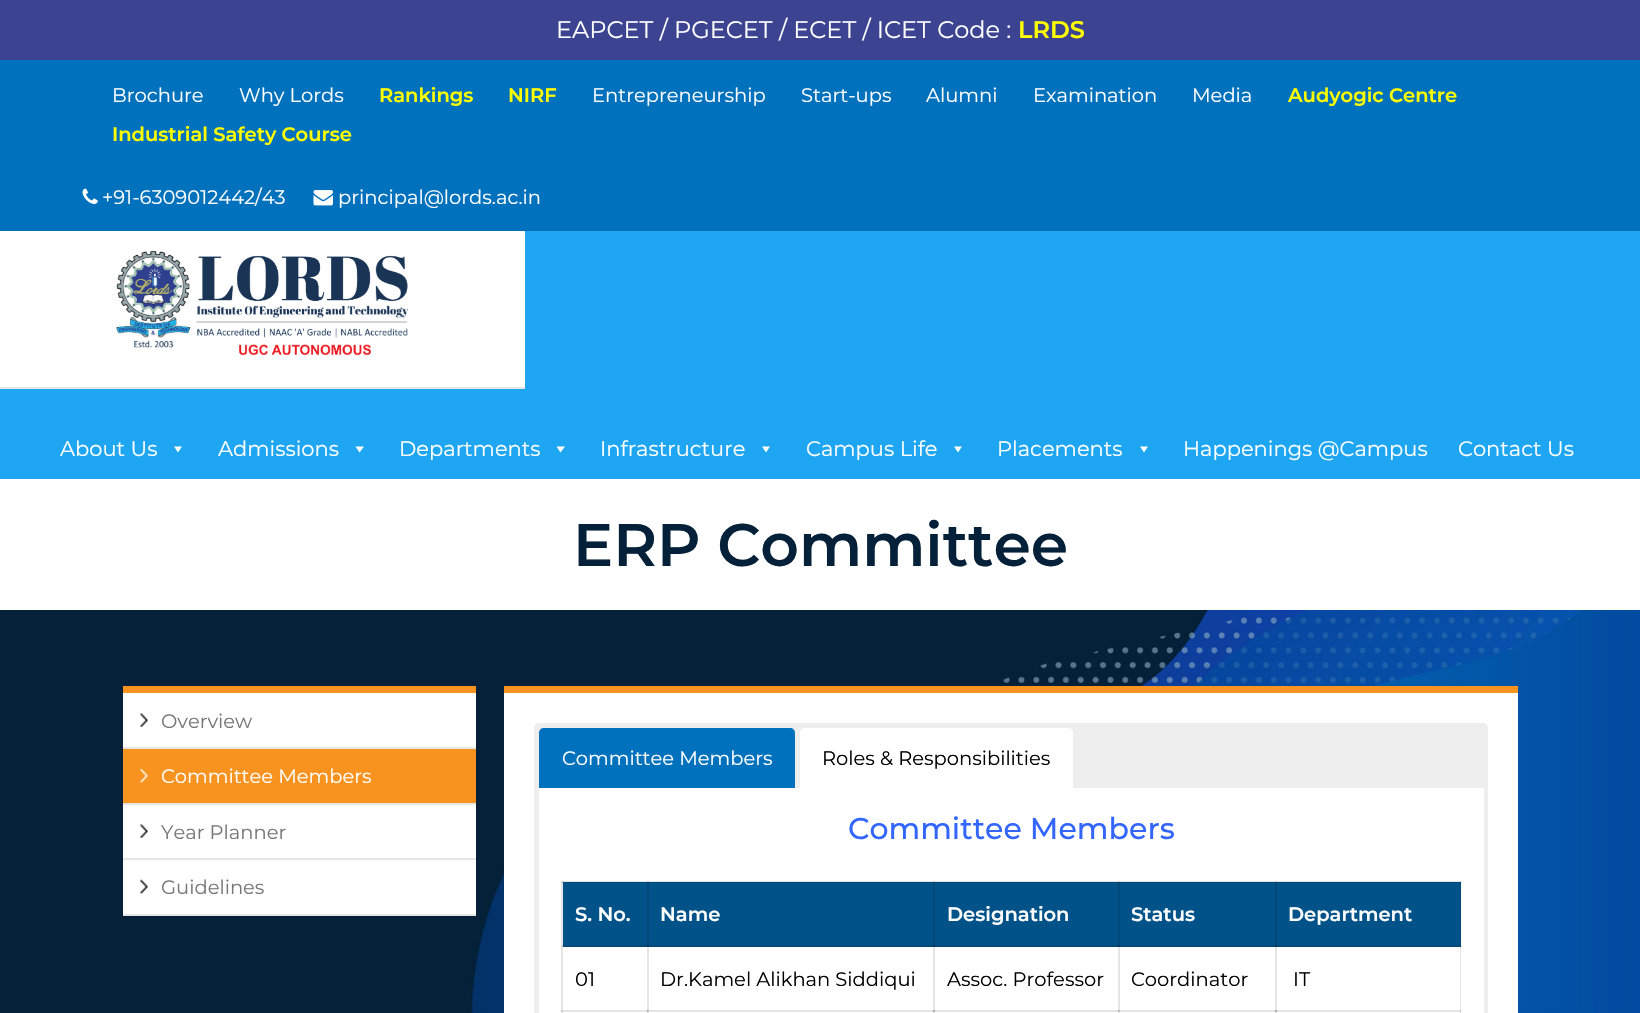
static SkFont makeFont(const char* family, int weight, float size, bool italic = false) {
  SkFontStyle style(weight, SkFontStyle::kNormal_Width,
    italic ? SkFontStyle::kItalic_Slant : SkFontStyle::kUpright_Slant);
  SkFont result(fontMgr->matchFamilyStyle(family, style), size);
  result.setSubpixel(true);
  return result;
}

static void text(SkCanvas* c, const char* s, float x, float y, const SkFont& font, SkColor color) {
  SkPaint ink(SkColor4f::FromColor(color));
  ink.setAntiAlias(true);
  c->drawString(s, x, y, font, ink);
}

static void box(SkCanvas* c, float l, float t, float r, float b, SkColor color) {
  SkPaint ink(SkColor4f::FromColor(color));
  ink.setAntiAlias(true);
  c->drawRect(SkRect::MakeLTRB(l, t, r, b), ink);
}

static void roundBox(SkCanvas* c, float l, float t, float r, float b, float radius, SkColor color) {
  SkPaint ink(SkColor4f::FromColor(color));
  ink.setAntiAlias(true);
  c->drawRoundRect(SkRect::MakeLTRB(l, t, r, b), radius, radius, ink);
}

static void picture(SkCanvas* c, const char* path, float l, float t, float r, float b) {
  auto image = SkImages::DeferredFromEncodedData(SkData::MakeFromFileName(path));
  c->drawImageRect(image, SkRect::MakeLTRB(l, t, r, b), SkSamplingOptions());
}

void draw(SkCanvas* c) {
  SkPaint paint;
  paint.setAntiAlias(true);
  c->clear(0xffffffff);
  box(c, 0, 0, 1640, 60, 0xff3c4492);
  SkFont face1 = makeFont("Montserrat", 400, 24);
  text(c, "EAPCET / PGECET / ECET / ICET Code :", 556, 38, face1, 0xffffffff);
  SkFont face2 = makeFont("Montserrat", 600, 24);
  text(c, "LRDS", 1018, 38, face2, 0xffffff00);
  box(c, 0, 60, 1640, 231, 0xff0071bc);
  SkFont face3 = makeFont("Montserrat", 400, 19.5f);
  text(c, "Brochure", 112, 102, face3, 0xffffffff);
  text(c, "Why Lords", 239, 102, face3, 0xffffffff);
  SkFont face4 = makeFont("Montserrat", 600, 19.5f);
  text(c, "Rankings", 379, 102, face4, 0xffffff00);
  text(c, "NIRF", 508, 102, face4, 0xffffff00);
  text(c, "Entrepreneurship", 592, 102, face3, 0xffffffff);
  text(c, "Start-ups", 801, 102, face3, 0xffffffff);
  text(c, "Alumni", 926, 102, face3, 0xffffffff);
  text(c, "Examination", 1033, 102, face3, 0xffffffff);
  text(c, "Media", 1192, 102, face3, 0xffffffff);
  text(c, "Audyogic Centre", 1288, 102, face4, 0xffffff00);
  text(c, "Industrial Safety Course", 112, 141, face4, 0xffffff00);
  picture(c, "img_01.png", 82, 188, 98, 204);
  text(c, "+91-6309012442/43", 102, 204, face3, 0xffffffff);
  picture(c, "img_02.png", 313, 190, 333, 206);
  text(c, "principal@lords.ac.in", 338, 204, face3, 0xffffffff);
  box(c, 0, 231, 1640, 479, 0xff1fa6f2);
  box(c, 0, 231, 525, 387, 0xffffffff);
  box(c, 0, 387, 525, 389, 0xffe6e6e6);
  picture(c, "img_03.png", 116, 250, 409, 356);
  SkFont face5 = makeFont("Montserrat", 400, 21);
  text(c, "About Us", 60, 456, face5, 0xffffffff);
  paint.setColor(0xffffffff);
  c->drawPath(SkPathBuilder().moveTo(182, 446.5f).lineTo(178, 452.5f).lineTo(174, 446.5f).close().detach(), paint);
  text(c, "Admissions", 218, 456, face5, 0xffffffff);
  c->drawPath(SkPathBuilder().moveTo(364, 446.5f).lineTo(359.5f, 452.5f).lineTo(355.5f, 446.5f).close().detach(), paint);
  text(c, "Departments", 399, 456, face5, 0xffffffff);
  c->drawPath(SkPathBuilder().moveTo(565, 446.5f).lineTo(560.5f, 452.5f).lineTo(556.5f, 446.5f).close().detach(), paint);
  text(c, "Infrastructure", 600, 456, face5, 0xffffffff);
  c->drawPath(SkPathBuilder().moveTo(770, 446.5f).lineTo(766, 452.5f).lineTo(762, 446.5f).close().detach(), paint);
  text(c, "Campus Life", 806, 456, face5, 0xffffffff);
  c->drawPath(SkPathBuilder().moveTo(962, 446.5f).lineTo(958, 452.5f).lineTo(954, 446.5f).close().detach(), paint);
  text(c, "Placements", 997, 456, face5, 0xffffffff);
  c->drawPath(SkPathBuilder().moveTo(1148, 446.5f).lineTo(1144, 452.5f).lineTo(1140, 446.5f).close().detach(), paint);
  text(c, "Happenings @Campus", 1183, 456, face5, 0xffffffff);
  text(c, "Contact Us", 1458, 456, face5, 0xffffffff);
  SkFont face6 = makeFont("Montserrat", 600, 60);
  text(c, "ERP Committee", 573, 566, face6, 0xff052139);
  picture(c, "img_04.png", 0, 610, 1640, 1013);
  box(c, 123, 693, 476, 914, 0xffffffff);
  box(c, 123, 686, 476, 693, 0xfff7931e);
  picture(c, "img_05.png", 140, 713, 148, 727);
  box(c, 123, 747, 476, 749, 0xffe6e6e6);
  text(c, "Overview", 161, 728, face3, 0xff777777);
  box(c, 123, 749, 476, 803, 0xfff7931e);
  picture(c, "img_06.png", 140, 768, 148, 783);
  box(c, 123, 803, 476, 805, 0xffe6e6e6);
  text(c, "Committee Members", 161, 783, face3, 0xffffffff);
  picture(c, "img_05.png", 140, 824, 148, 838);
  box(c, 123, 858, 476, 860, 0xffe6e6e6);
  text(c, "Year Planner", 161, 839, face3, 0xff777777);
  picture(c, "img_07.png", 140, 879, 148, 894);
  box(c, 123, 914, 476, 916, 0xffe6e6e6);
  text(c, "Guidelines", 161, 894, face3, 0xff777777);
  box(c, 504, 693, 1518, 1013, 0xffffffff);
  box(c, 504, 686, 1518, 693, 0xfff7931e);
  roundBox(c, 534, 723, 1488, 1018, 5, 0xffeeeeee);
  paint.setColor(0xff0071bc);
  c->drawPath(SkPathBuilder().moveTo(544, 728).lineTo(790, 728).cubicTo(793, 728, 795, 730, 795, 733).lineTo(795, 788).lineTo(539, 788).lineTo(539, 733).cubicTo(539, 730, 541, 728, 544, 728).close().detach(), paint);
  text(c, "Committee Members", 562, 765, face3, 0xffffffff);
  paint.setColor(0xffffffff);
  c->drawPath(SkPathBuilder().moveTo(805, 728).lineTo(1068, 728).cubicTo(1071, 728, 1073, 730, 1073, 733).lineTo(1073, 788).lineTo(800, 788).lineTo(800, 733).cubicTo(800, 730, 802, 728, 805, 728).close().detach(), paint);
  text(c, "Roles & Responsibilities", 822, 765, face3, 0xff000000);
  box(c, 539, 788, 1484, 1013, 0xffffffff);
  SkFont face7 = makeFont("Montserrat", 500, 30);
  text(c, "Committee Members", 848, 839, face7, 0xff3366ff);
  box(c, 563, 882, 1461, 947, 0xff005289);
  box(c, 561, 881, 1461, 883, 0x1a000000);
  box(c, 561, 881, 563, 1013, 0x1a000000);
  box(c, 1460, 1010, 1461, 1013, 0xffe6e6e6);
  box(c, 1460, 945, 1461, 1011, 0x1a000000);
  box(c, 1460, 881, 1461, 947, 0x1a000000);
  box(c, 1275, 1010, 1277, 1013, 0xffe6e6e6);
  box(c, 1275, 1010, 1461, 1012, 0x1a000000);
  box(c, 1275, 945, 1277, 1011, 0x1a000000);
  box(c, 1275, 945, 1461, 947, 0x1a000000);
  box(c, 1275, 881, 1277, 947, 0x1a000000);
  box(c, 1118, 1010, 1120, 1013, 0xffe6e6e6);
  box(c, 1118, 1010, 1277, 1012, 0x1a000000);
  box(c, 1118, 945, 1120, 1011, 0x1a000000);
  box(c, 1118, 945, 1277, 947, 0x1a000000);
  box(c, 1118, 881, 1120, 947, 0x1a000000);
  box(c, 933, 1010, 935, 1013, 0xffe6e6e6);
  box(c, 933, 1010, 1119, 1012, 0x1a000000);
  box(c, 933, 945, 935, 1011, 0x1a000000);
  box(c, 933, 945, 1119, 947, 0x1a000000);
  box(c, 933, 881, 935, 947, 0x1a000000);
  box(c, 647, 1010, 649, 1013, 0xffe6e6e6);
  box(c, 647, 1010, 935, 1012, 0x1a000000);
  box(c, 647, 945, 649, 1011, 0x1a000000);
  box(c, 647, 945, 935, 947, 0x1a000000);
  box(c, 647, 881, 649, 947, 0x1a000000);
  box(c, 561, 945, 648, 947, 0x1a000000);
  text(c, "S. No.", 575, 921, face4, 0xffffffff);
  text(c, "Name", 660, 921, face4, 0xffffffff);
  text(c, "Designation", 947, 921, face4, 0xffffffff);
  text(c, "Status", 1131, 921, face4, 0xffffffff);
  text(c, "Department", 1288, 921, face4, 0xffffffff);
  box(c, 561, 1010, 648, 1012, 0x1a000000);
  text(c, "01", 575, 986, face3, 0xff000000);
  text(c, "Dr.Kamel Alikhan Siddiqui", 660, 986, face3, 0xff000000);
  text(c, "Assoc. Professor", 947, 986, face3, 0xff000000);
  text(c, "Coordinator", 1131, 986, face3, 0xff000000);
  text(c, "IT", 1293, 986, face3, 0xff000000);
}
